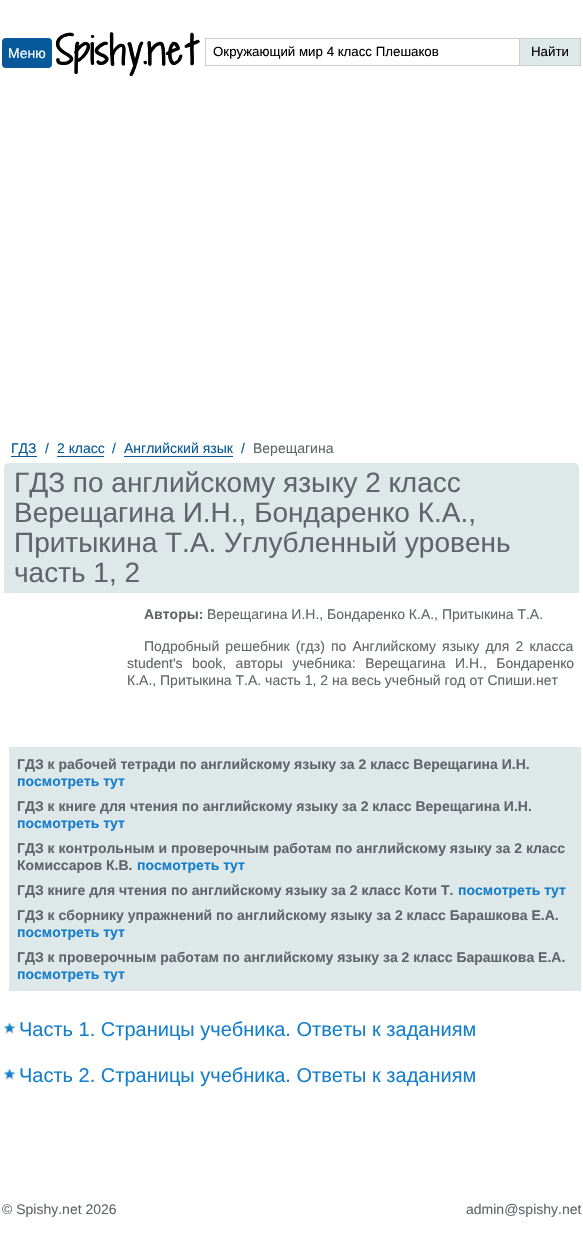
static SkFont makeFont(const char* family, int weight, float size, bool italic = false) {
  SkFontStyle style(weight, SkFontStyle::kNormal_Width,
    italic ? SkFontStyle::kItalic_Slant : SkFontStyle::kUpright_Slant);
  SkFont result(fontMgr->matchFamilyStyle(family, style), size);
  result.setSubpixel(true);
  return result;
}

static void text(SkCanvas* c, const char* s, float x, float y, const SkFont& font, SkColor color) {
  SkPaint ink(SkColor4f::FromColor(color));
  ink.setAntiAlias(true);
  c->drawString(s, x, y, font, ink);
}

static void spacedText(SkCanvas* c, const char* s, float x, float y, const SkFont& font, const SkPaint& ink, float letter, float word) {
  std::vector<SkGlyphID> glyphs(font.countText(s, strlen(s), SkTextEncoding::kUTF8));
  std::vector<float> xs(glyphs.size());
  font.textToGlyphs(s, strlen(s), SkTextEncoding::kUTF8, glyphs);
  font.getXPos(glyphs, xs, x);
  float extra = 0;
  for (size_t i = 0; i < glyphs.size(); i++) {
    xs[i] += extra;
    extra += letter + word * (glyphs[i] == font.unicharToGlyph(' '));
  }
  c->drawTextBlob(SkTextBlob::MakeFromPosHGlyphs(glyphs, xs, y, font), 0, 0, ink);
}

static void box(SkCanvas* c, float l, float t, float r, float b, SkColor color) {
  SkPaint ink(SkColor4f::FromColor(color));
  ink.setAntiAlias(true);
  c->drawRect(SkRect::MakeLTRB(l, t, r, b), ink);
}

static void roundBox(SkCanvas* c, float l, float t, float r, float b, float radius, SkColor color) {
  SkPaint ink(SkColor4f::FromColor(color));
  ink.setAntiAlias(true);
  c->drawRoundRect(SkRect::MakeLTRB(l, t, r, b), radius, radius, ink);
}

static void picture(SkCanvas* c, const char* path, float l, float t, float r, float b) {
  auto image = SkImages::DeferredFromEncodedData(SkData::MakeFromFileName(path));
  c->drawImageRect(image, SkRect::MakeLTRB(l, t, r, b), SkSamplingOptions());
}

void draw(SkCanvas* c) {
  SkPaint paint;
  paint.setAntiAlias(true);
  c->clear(0xffffffff);
  roundBox(c, 2, 38, 52, 68, 4, 0xff075999);
  SkFont face1 = makeFont("Liberation Sans", 400, 14);
  text(c, "Меню", 8, 58, face1, 0xffffffff);
  SkFont face2 = makeFont("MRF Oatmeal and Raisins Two", 500, 42);
  text(c, "Spishy.net", 56, 65, face2, 0xff000000);
  paint.setStyle(SkPaint::kStroke_Style);
  paint.setStrokeWidth(1);
  paint.setColor(0xffcccccc);
  c->drawRect(SkRect::MakeLTRB(205.5f, 38.5f, 580.5f, 65.5f), paint);
  SkFont face3 = makeFont("Liberation Sans", 400, 13.3f);
  text(c, "Окружающий мир 4 класс Плешаков", 213, 56, face3, 0xff000000);
  box(c, 520, 39, 580, 65, 0xffdfe8e8);
  box(c, 519, 39, 520, 65, 0xffcccccc);
  text(c, "Найти", 531, 56, face3, 0xff000000);
  text(c, "ГДЗ", 11, 453, face1, 0xff075999);
  box(c, 11, 456, 37, 457, 0xff075999);
  text(c, "/", 45, 453, face1, 0xff075999);
  text(c, "2 класс", 57, 453, face1, 0xff075999);
  box(c, 57, 456, 104, 457, 0xff075999);
  text(c, "/", 112, 453, face1, 0xff075999);
  text(c, "Английский язык", 124, 453, face1, 0xff075999);
  box(c, 124, 456, 233, 457, 0xff075999);
  text(c, "/", 241, 453, face1, 0xff075999);
  text(c, "Верещагина", 253, 453, face1, 0xff5e6669);
  paint.setStyle(SkPaint::kFill_Style);
  paint.setColor(0xffdfe8e8);
  c->drawPath(SkPathBuilder().moveTo(9, 463).lineTo(574, 463).cubicTo(577, 463, 579, 465, 579, 468).lineTo(579, 593).lineTo(4, 593).lineTo(4, 468).cubicTo(4, 465, 6, 463, 9, 463).close().detach(), paint);
  SkFont face4 = makeFont("Liberation Sans", 400, 28);
  text(c, "ГДЗ по английскому языку 2 класс", 14, 492, face4, 0xff5e6669);
  text(c, "Верещагина И.Н., Бондаренко К.А.,", 14, 522, face4, 0xff5e6669);
  text(c, "Притыкина Т.А. Углубленный уровень", 14, 552, face4, 0xff5e6669);
  text(c, "часть 1, 2", 14, 582, face4, 0xff5e6669);
  SkFont face5 = makeFont("Liberation Sans", 700, 14);
  text(c, "Авторы:", 144, 619, face5, 0xff5e6669);
  text(c, "Верещагина И.Н., Бондаренко К.А., Притыкина Т.А.", 207, 619, face1, 0xff5e6669);
  paint.setColor(0xff5e6669);
  spacedText(c, "Подробный решебник (гдз) по Английскому языку для 2 класса", 144, 651, face1, paint, 0, 2.25f);
  spacedText(c, "student's book, авторы учебника: Верещагина И.Н., Бондаренко", 127, 668, face1, paint, 0, 5.5f);
  text(c, "К.А., Притыкина Т.А. часть 1, 2 на весь учебный год от Спиши.нет", 127, 685, face1, 0xff5e6669);
  box(c, 9, 747, 581, 991, 0xffdfe8e8);
  text(c, "ГДЗ к рабочей тетради по английскому языку за 2 класс Верещагина И.Н.", 17, 769, face5, 0xff5e6669);
  text(c, "посмотреть тут", 17, 786, face5, 0xff167fcb);
  text(c, "ГДЗ к книге для чтения по английскому языку за 2 класс Верещагина И.Н.", 17, 811, face5, 0xff5e6669);
  text(c, "посмотреть тут", 17, 828, face5, 0xff167fcb);
  text(c, "ГДЗ к контрольным и проверочным работам по английскому языку за 2 класс", 17, 853, face5, 0xff5e6669);
  text(c, "Комиссаров К.В.", 17, 870, face5, 0xff5e6669);
  text(c, "посмотреть тут", 137, 870, face5, 0xff167fcb);
  text(c, "ГДЗ книге для чтения по английскому языку за 2 класс Коти Т.", 17, 895, face5, 0xff5e6669);
  text(c, "посмотреть тут", 458, 895, face5, 0xff167fcb);
  text(c, "ГДЗ к сборнику упражнений по английскому языку за 2 класс Барашкова Е.А.", 17, 920, face5, 0xff5e6669);
  text(c, "посмотреть тут", 17, 937, face5, 0xff167fcb);
  text(c, "ГДЗ к проверочным работам по английскому языку за 2 класс Барашкова Е.А.", 17, 962, face5, 0xff5e6669);
  text(c, "посмотреть тут", 17, 979, face5, 0xff167fcb);
  picture(c, "img_01.png", 4, 1023, 15, 1034);
  SkFont face6 = makeFont("Liberation Sans", 400, 20);
  text(c, "Часть 1. Страницы учебника. Ответы к заданиям", 19, 1036, face6, 0xff167fcb);
  picture(c, "img_01.png", 4, 1069, 15, 1080);
  text(c, "Часть 2. Страницы учебника. Ответы к заданиям", 19, 1082, face6, 0xff167fcb);
  text(c, "© Spishy.net 2026", 2, 1214, face1, 0xff5e6669);
  text(c, "admin@spishy.net", 466, 1214, face1, 0xff5e6669);
}
